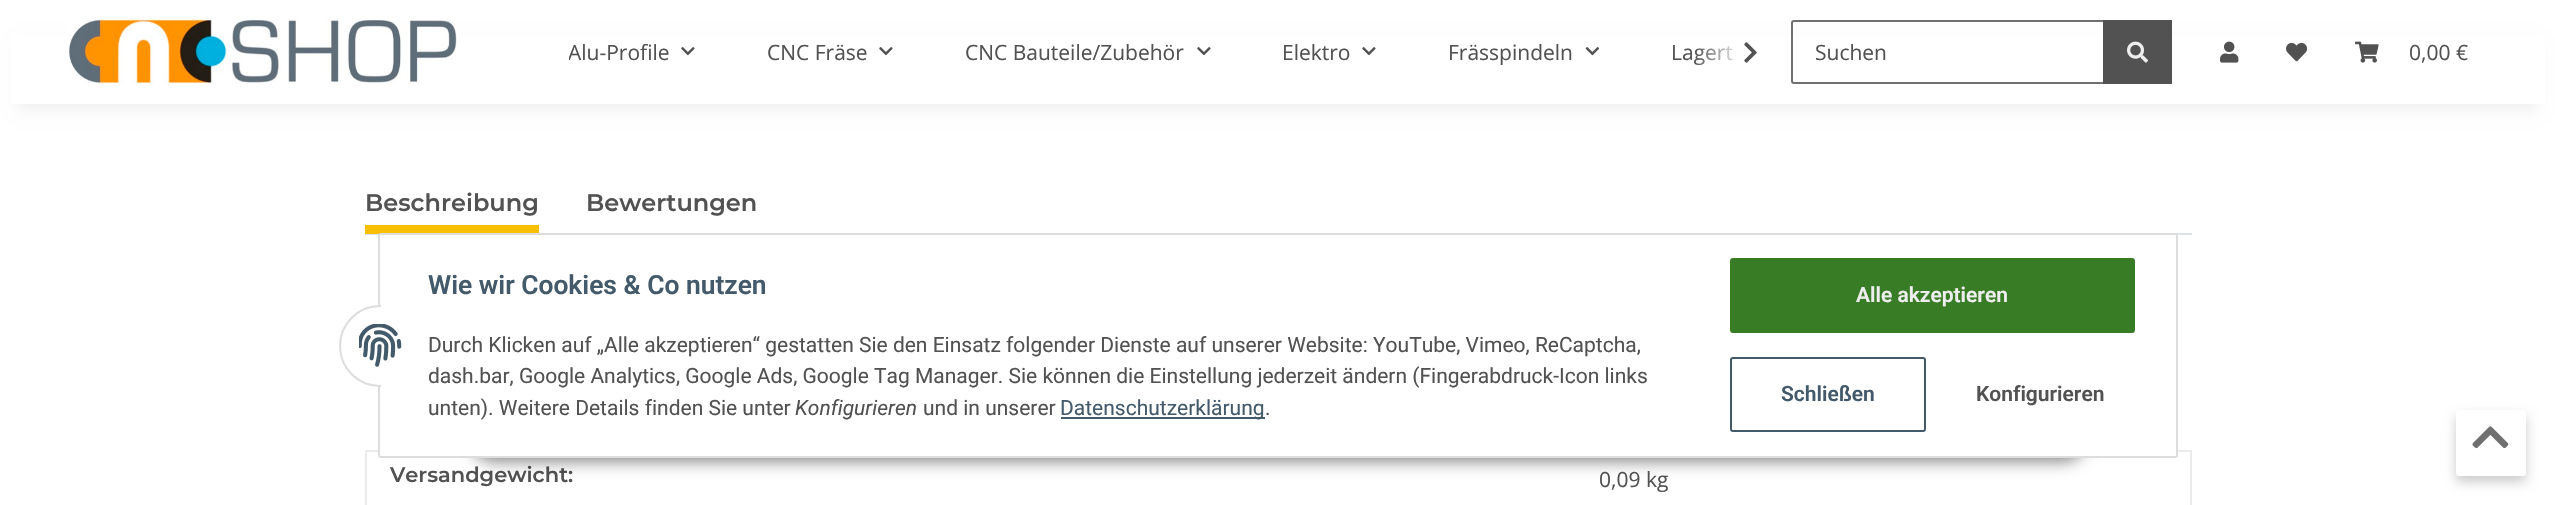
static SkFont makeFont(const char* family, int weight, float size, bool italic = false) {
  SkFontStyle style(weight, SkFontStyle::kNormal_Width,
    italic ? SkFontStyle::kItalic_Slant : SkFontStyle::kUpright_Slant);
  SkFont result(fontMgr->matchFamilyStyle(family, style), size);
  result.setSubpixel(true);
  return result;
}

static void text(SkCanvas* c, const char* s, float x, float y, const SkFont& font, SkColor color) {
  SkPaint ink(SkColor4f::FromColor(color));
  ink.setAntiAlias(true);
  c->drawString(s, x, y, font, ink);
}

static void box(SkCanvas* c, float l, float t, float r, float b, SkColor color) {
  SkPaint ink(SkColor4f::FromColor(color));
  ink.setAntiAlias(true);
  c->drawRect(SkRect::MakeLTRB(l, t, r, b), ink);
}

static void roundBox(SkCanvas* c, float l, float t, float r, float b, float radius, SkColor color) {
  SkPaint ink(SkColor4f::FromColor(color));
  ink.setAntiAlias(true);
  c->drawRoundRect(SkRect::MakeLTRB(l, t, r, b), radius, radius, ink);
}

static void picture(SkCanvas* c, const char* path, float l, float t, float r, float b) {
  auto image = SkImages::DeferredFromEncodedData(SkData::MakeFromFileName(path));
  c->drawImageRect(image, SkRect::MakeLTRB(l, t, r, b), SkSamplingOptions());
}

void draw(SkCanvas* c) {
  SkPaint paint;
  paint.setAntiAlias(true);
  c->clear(0xffffffff);
  paint.setColor(0x0f000000);
  paint.setMaskFilter(SkMaskFilter::MakeBlur(kNormal_SkBlurStyle, 7));
  c->drawRect(SkRect::MakeLTRB(18, 42, 2538, 110), paint);
  paint.setMaskFilter(nullptr);
  box(c, 11, 35, 2545, 104, 0xffffffff);
  picture(c, "img_01.png", 68, 15, 457, 84);
  SkFont face1 = makeFont("Open Sans", 400, 21);
  text(c, "Lagert", 1671, 60, face1, 0xff525252);
  {
    const SkColor colors[] = {0x03ffffff, 0xffffffff};
    const float stops[] = {0, 0.7f};
    const SkPoint ends[] = {{1695, 53}, {1767, 53}};
    paint.setShader(SkGradientShader::MakeLinear(ends, colors, stops, 2, SkTileMode::kClamp));
    paint.setAlpha(255);
  }
  c->drawRect(SkRect::MakeLTRB(1696, 46, 1733, 65), paint);
  picture(c, "img_02.png", 1744, 42, 1757, 63);
  c->save();
  c->clipRect(SkRect::MakeLTRB(569, 36, 669, 68));
  text(c, "Alu-Profile", 568, 60, face1, 0xff525252);
  c->restore();
  picture(c, "img_03.png", 681, 47, 695, 56);
  text(c, "CNC Fräse", 767, 60, face1, 0xff525252);
  picture(c, "img_03.png", 879, 47, 893, 56);
  text(c, "CNC Bauteile/Zubehör", 965, 60, face1, 0xff525252);
  picture(c, "img_03.png", 1197, 47, 1211, 56);
  text(c, "Elektro", 1282, 60, face1, 0xff525252);
  picture(c, "img_03.png", 1362, 47, 1376, 56);
  text(c, "Frässpindeln", 1448, 60, face1, 0xff525252);
  picture(c, "img_04.png", 1585, 47, 1600, 56);
  paint.setStyle(SkPaint::kStroke_Style);
  paint.setStrokeWidth(2);
  paint.setShader(nullptr);
  paint.setColor(0xff707070);
  c->drawPath(SkPathBuilder().moveTo(1794, 21).lineTo(2104, 21).lineTo(2104, 83).lineTo(1794, 83).cubicTo(1793, 83, 1792, 82, 1792, 81).lineTo(1792, 23).cubicTo(1792, 22, 1793, 21, 1794, 21).close().detach(), paint);
  text(c, "Suchen", 1815, 60, face1, 0xff525252);
  box(c, 2103, 20, 2172, 84, 0xff525252);
  picture(c, "img_05.png", 2127, 41, 2148, 63);
  picture(c, "img_06.png", 2220, 41, 2239, 63);
  picture(c, "img_07.png", 2286, 42, 2307, 62);
  picture(c, "img_08.png", 2355, 41, 2379, 63);
  text(c, "0,00 €", 2409, 60, face1, 0xff525252);
  box(c, 365, 233, 2192, 235, 0xffdee2e6);
  SkFont face2 = makeFont("Montserrat", 600, 24);
  text(c, "Beschreibung", 365, 211, face2, 0xff525252);
  box(c, 365, 225, 539, 234, 0xfff8bf00);
  text(c, "Bewertungen", 586, 211, face2, 0xff525252);
  box(c, 365, 450, 2192, 452, 0xffebebeb);
  box(c, 2190, 450, 2192, 505, 0xffebebeb);
  box(c, 365, 450, 367, 505, 0xffebebeb);
  SkFont face3 = makeFont("Montserrat", 600, 21);
  text(c, "Versandgewicht:", 390, 482, face3, 0xff525252);
  text(c, "0,09 kg", 1599, 487, face1, 0xff525252);
  paint.setStyle(SkPaint::kFill_Style);
  paint.setColor(0x73000000);
  paint.setMaskFilter(SkMaskFilter::MakeBlur(kNormal_SkBlurStyle, 7.5f));
  c->drawRoundRect(SkRect::MakeLTRB(470, 414, 2087, 462), 24, 24, paint);
  paint.setMaskFilter(nullptr);
  paint.setColor(0xffffffff);
  c->drawRoundRect(SkRect::MakeLTRB(379, 234, 2177, 457), 2, 2, paint);
  paint.setStyle(SkPaint::kStroke_Style);
  paint.setColor(0xffdddddd);
  c->drawRoundRect(SkRect::MakeLTRB(379, 234, 2177, 457), 2, 2, paint);
  paint.setStyle(SkPaint::kFill_Style);
  paint.setColor(0xffffffff);
  c->drawRoundRect(SkRect::MakeLTRB(340, 306, 421, 386), 40, 40, paint);
  paint.setStyle(SkPaint::kStroke_Style);
  paint.setColor(0xffdddddd);
  c->drawRoundRect(SkRect::MakeLTRB(340, 306, 421, 386), 40, 40, paint);
  box(c, 381, 305, 422, 387, 0xffffffff);
  picture(c, "img_09.png", 359, 324, 402, 367);
  SkFont face4 = makeFont("Roboto", 600, 26.4f);
  text(c, "Wie wir Cookies & Co nutzen", 428, 294, face4, 0xff435a6b);
  SkFont face5 = makeFont("Roboto", 400, 21);
  text(c, "Durch Klicken auf „Alle akzeptieren“ gestatten Sie den Einsatz folgender Dienste auf unserer Website: YouTube, Vimeo, ReCaptcha,", 428, 352, face5, 0xff525252);
  text(c, "dash.bar, Google Analytics, Google Ads, Google Tag Manager. Sie können die Einstellung jederzeit ändern (Fingerabdruck-Icon links", 428, 383, face5, 0xff525252);
  text(c, "unten). Weitere Details finden Sie unter", 428, 415, face5, 0xff525252);
  SkFont face6 = makeFont("Roboto", 400, 21, true);
  text(c, "Konfigurieren", 795, 415, face6, 0xff525252);
  text(c, "und in unserer", 923, 415, face5, 0xff525252);
  box(c, 1061, 417, 1265, 419, 0xff435a6b);
  text(c, "Datenschutzerklärung", 1060, 415, face5, 0xff435a6b);
  text(c, ".", 1265, 415, face5, 0xff525252);
  paint.setStyle(SkPaint::kFill_Style);
  paint.setColor(0xff397c26);
  c->drawRoundRect(SkRect::MakeLTRB(1731, 259, 2134, 332), 2, 2, paint);
  paint.setStyle(SkPaint::kStroke_Style);
  c->drawRoundRect(SkRect::MakeLTRB(1731, 259, 2134, 332), 2, 2, paint);
  SkFont face7 = makeFont("Roboto", 600, 21);
  text(c, "Alle akzeptieren", 1856, 302, face7, 0xffeeeeee);
  paint.setColor(0xff435a6b);
  c->drawRoundRect(SkRect::MakeLTRB(1731, 358, 1925, 431), 2, 2, paint);
  text(c, "Schließen", 1781, 401, face7, 0xff435a6b);
  text(c, "Konfigurieren", 1976, 401, face7, 0xff525252);
  paint.setStyle(SkPaint::kFill_Style);
  paint.setColor(0x33000000);
  paint.setMaskFilter(SkMaskFilter::MakeBlur(kNormal_SkBlurStyle, 6));
  c->drawRoundRect(SkRect::MakeLTRB(2456, 416, 2526, 482), 3, 3, paint);
  paint.setMaskFilter(nullptr);
  roundBox(c, 2456, 410, 2526, 476, 3, 0xffffffff);
  picture(c, "img_10.png", 2472, 426, 2509, 449);
}
